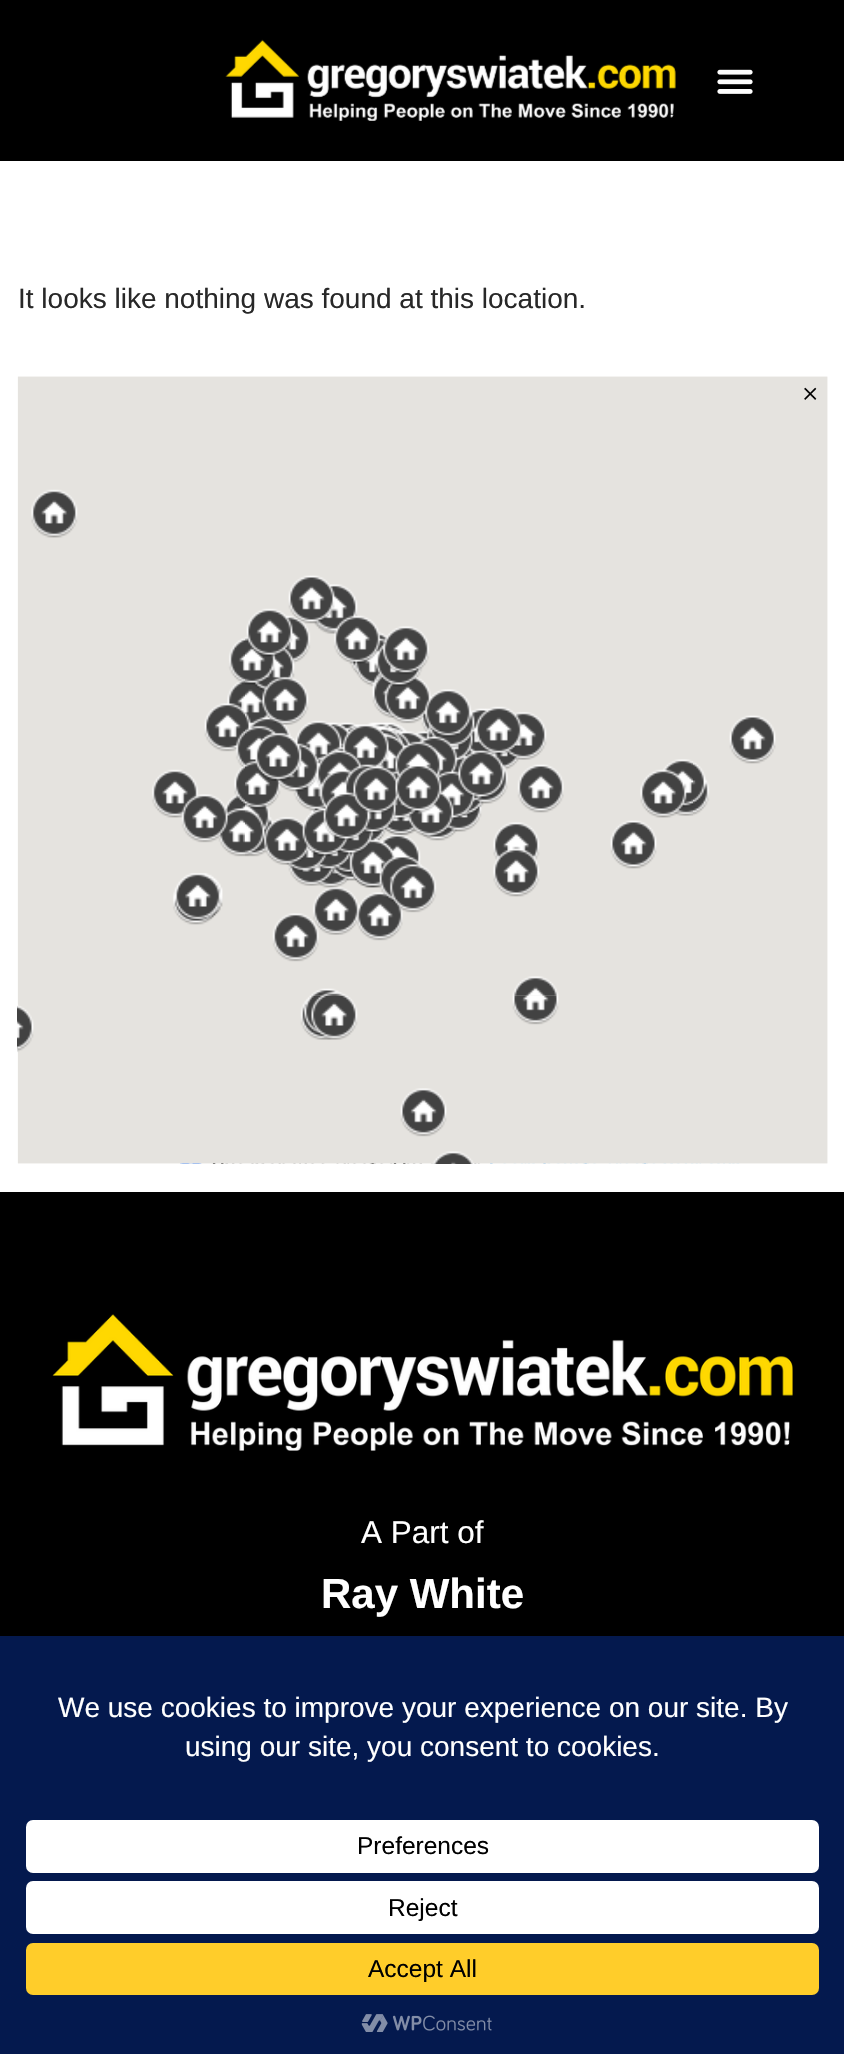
static SkFont makeFont(const char* family, int weight, float size, bool italic = false) {
  SkFontStyle style(weight, SkFontStyle::kNormal_Width,
    italic ? SkFontStyle::kItalic_Slant : SkFontStyle::kUpright_Slant);
  SkFont result(fontMgr->matchFamilyStyle(family, style), size);
  result.setSubpixel(true);
  return result;
}

static void text(SkCanvas* c, const char* s, float x, float y, const SkFont& font, SkColor color) {
  SkPaint ink(SkColor4f::FromColor(color));
  ink.setAntiAlias(true);
  c->drawString(s, x, y, font, ink);
}

static void box(SkCanvas* c, float l, float t, float r, float b, SkColor color) {
  SkPaint ink(SkColor4f::FromColor(color));
  ink.setAntiAlias(true);
  c->drawRect(SkRect::MakeLTRB(l, t, r, b), ink);
}

static void roundBox(SkCanvas* c, float l, float t, float r, float b, float radius, SkColor color) {
  SkPaint ink(SkColor4f::FromColor(color));
  ink.setAntiAlias(true);
  c->drawRoundRect(SkRect::MakeLTRB(l, t, r, b), radius, radius, ink);
}

static void picture(SkCanvas* c, const char* path, float l, float t, float r, float b) {
  auto image = SkImages::DeferredFromEncodedData(SkData::MakeFromFileName(path));
  c->drawImageRect(image, SkRect::MakeLTRB(l, t, r, b), SkSamplingOptions());
}

void draw(SkCanvas* c) {
  SkPaint paint;
  paint.setAntiAlias(true);
  c->clear(0xffffffff);
  box(c, 0, 0, 844, 161, 0xff000000);
  picture(c, "img_01.png", 225, 39, 676, 121);
  picture(c, "img_02.png", 717, 69, 753, 94);
  SkFont face1 = makeFont("Liberation Sans", 400, 28);
  text(c, "It looks like nothing was found at this location.", 18, 308, face1, 0xff282828);
  picture(c, "img_03.png", 17, 376, 828, 1164);
  box(c, 0, 1192, 844, 1636, 0xff000000);
  picture(c, "img_04.png", 52, 1314, 793, 1451);
  SkFont face2 = makeFont("Liberation Sans", 400, 31.5f);
  text(c, "A Part of", 361, 1543, face2, 0xffffffff);
  SkFont face3 = makeFont("Liberation Sans", 700, 42);
  text(c, "Ray White", 321, 1608, face3, 0xffffffff);
  box(c, 0, 1636, 844, 2054, 0xff04194e);
  text(c, "We use cookies to improve your experience on our site. By", 58, 1717, face1, 0xffffffff);
  text(c, "using our site, you consent to cookies.", 185, 1756, face1, 0xffffffff);
  roundBox(c, 26, 1820, 819, 1873, 7, 0xffffffff);
  SkFont face4 = makeFont("Liberation Sans", 400, 24.5f);
  text(c, "Preferences", 357, 1854, face4, 0xff000000);
  roundBox(c, 26, 1881, 819, 1934, 7, 0xffffffff);
  text(c, "Reject", 388, 1916, face4, 0xff000000);
  roundBox(c, 26, 1943, 819, 1995, 7, 0xffffcd2a);
  text(c, "Accept All", 368, 1977, face4, 0xff000000);
  picture(c, "img_05.png", 361, 2014, 492, 2032);
}
